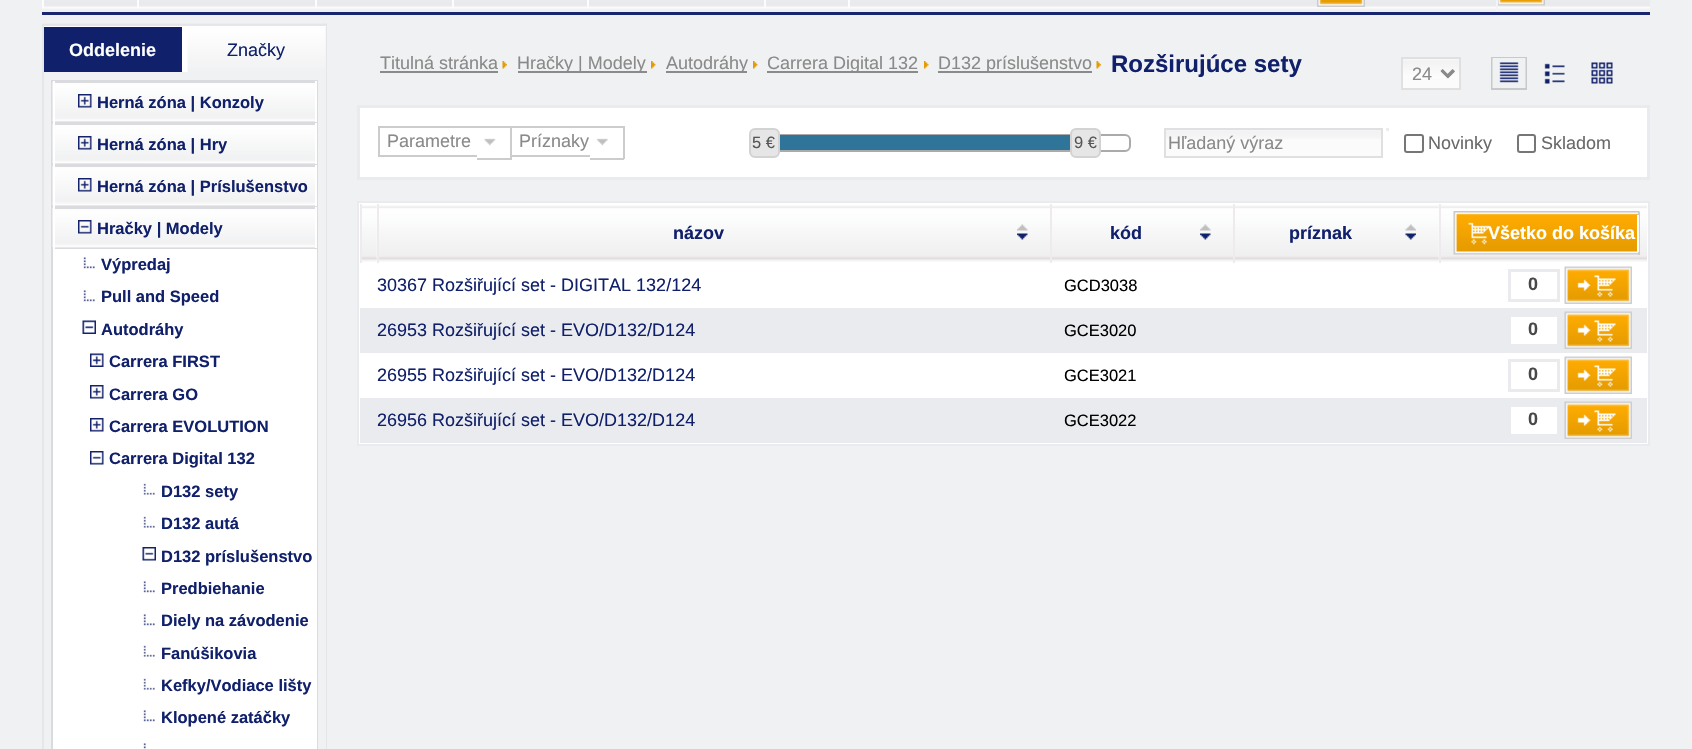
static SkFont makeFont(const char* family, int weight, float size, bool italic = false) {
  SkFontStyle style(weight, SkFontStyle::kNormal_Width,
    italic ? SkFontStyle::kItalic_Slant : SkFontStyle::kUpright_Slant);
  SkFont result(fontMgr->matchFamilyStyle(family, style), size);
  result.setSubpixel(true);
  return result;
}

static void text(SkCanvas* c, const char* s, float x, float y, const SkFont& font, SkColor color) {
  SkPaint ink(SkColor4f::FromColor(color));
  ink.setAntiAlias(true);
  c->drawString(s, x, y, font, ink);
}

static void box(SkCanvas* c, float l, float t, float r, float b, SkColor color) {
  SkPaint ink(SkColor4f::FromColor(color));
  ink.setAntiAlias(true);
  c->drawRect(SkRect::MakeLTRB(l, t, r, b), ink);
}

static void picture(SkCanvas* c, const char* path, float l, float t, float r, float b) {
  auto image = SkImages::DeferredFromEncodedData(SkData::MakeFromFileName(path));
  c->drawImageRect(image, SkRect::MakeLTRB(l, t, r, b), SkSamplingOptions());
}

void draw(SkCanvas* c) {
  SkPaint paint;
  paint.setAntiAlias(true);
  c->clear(0xfff0f1f2);
  picture(c, "img_01.png", 42, 0, 1650, 9);
  box(c, 42, 12, 1650, 15, 0xff18276f);
  box(c, 137, 0, 139, 8, 0xfffdfdfd);
  box(c, 42, 0, 44, 8, 0xfffdfdfd);
  box(c, 315, 0, 317, 8, 0xfffdfdfd);
  box(c, 452, 0, 454, 8, 0xfffdfdfd);
  box(c, 587, 0, 589, 8, 0xfffdfdfd);
  box(c, 764, 0, 766, 8, 0xfffdfdfd);
  box(c, 848, 0, 850, 8, 0xfffdfdfd);
  picture(c, "img_02.png", 1317, 0, 1365, 7);
  box(c, 1496, 0, 1498, 11, 0xfff3f4f5);
  picture(c, "img_03.png", 1498, 0, 1545, 6);
  picture(c, "img_04.png", 42, 23, 327, 24);
  paint.setStyle(SkPaint::kStroke_Style);
  paint.setStrokeWidth(2);
  paint.setColor(0xffe5e6e9);
  c->drawRect(SkRect::MakeLTRB(43, 25, 326, 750), paint);
  box(c, 44, 26, 326, 72, 0xffffffff);
  box(c, 44, 27, 182, 72, 0xff10206a);
  SkFont face1 = makeFont("Liberation Sans", 700, 18);
  text(c, "Oddelenie", 69, 56, face1, 0xffffffff);
  box(c, 188, 27, 326, 72, 0xfff0f1f2);
  picture(c, "img_05.png", 187, 27, 326, 72);
  SkFont face2 = makeFont("Liberation Sans", 400, 18);
  text(c, "Značky", 227, 56, face2, 0xff10206a);
  box(c, 325, 72, 326, 749, 0xfff0f1f2);
  box(c, 55, 121, 315, 248, 0xffe7e8eb);
  paint.setColor(0xffdadbdf);
  c->drawRect(SkRect::MakeLTRB(52, 81, 317, 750), paint);
  picture(c, "img_06.png", 52, 82, 315, 121);
  box(c, 53, 82, 317, 83, 0xffdadbdf);
  box(c, 315, 81, 317, 123, 0xffffffff);
  box(c, 53, 122, 317, 123, 0xffdadbdf);
  box(c, 53, 81, 55, 123, 0xffffffff);
  picture(c, "img_07.png", 78, 94, 92, 108);
  SkFont face3 = makeFont("Liberation Sans", 700, 16.5f);
  text(c, "Herná zóna | Konzoly", 97, 108, face3, 0xff10206a);
  picture(c, "img_08.png", 52, 124, 315, 163);
  box(c, 53, 123, 317, 125, 0xffdadbdf);
  box(c, 315, 123, 317, 165, 0xffffffff);
  box(c, 53, 164, 317, 165, 0xffdadbdf);
  box(c, 53, 123, 55, 165, 0xffffffff);
  picture(c, "img_07.png", 78, 136, 92, 150);
  text(c, "Herná zóna | Hry", 97, 150, face3, 0xff10206a);
  picture(c, "img_09.png", 52, 166, 315, 205);
  box(c, 53, 165, 317, 167, 0xffdadbdf);
  box(c, 315, 165, 317, 207, 0xffffffff);
  box(c, 53, 206, 317, 207, 0xffdadbdf);
  box(c, 53, 165, 55, 207, 0xffffffff);
  picture(c, "img_07.png", 78, 178, 92, 192);
  text(c, "Herná zóna | Príslušenstvo", 97, 192, face3, 0xff10206a);
  picture(c, "img_10.png", 52, 208, 315, 247);
  box(c, 53, 207, 317, 209, 0xffdadbdf);
  box(c, 315, 207, 317, 249, 0xffffffff);
  box(c, 53, 248, 317, 249, 0xffdadbdf);
  box(c, 53, 207, 55, 249, 0xffffffff);
  picture(c, "img_11.png", 78, 220, 92, 234);
  text(c, "Hračky | Modely", 97, 234, face3, 0xff10206a);
  box(c, 53, 249, 317, 749, 0xffffffff);
  picture(c, "img_12.png", 83, 257, 95, 269);
  text(c, "Výpredaj", 101, 270, face3, 0xff10206a);
  picture(c, "img_12.png", 83, 290, 95, 302);
  text(c, "Pull and Speed", 101, 302, face3, 0xff10206a);
  picture(c, "img_13.png", 82, 320, 96, 334);
  text(c, "Autodráhy", 101, 335, face3, 0xff10206a);
  picture(c, "img_14.png", 90, 353, 104, 367);
  text(c, "Carrera FIRST", 109, 367, face3, 0xff10206a);
  picture(c, "img_15.png", 90, 385, 104, 399);
  text(c, "Carrera GO", 109, 400, face3, 0xff10206a);
  picture(c, "img_15.png", 90, 418, 104, 432);
  text(c, "Carrera EVOLUTION", 109, 432, face3, 0xff10206a);
  picture(c, "img_16.png", 90, 451, 104, 465);
  text(c, "Carrera Digital 132", 109, 464, face3, 0xff10206a);
  picture(c, "img_17.png", 143, 483, 155, 495);
  text(c, "D132 sety", 161, 497, face3, 0xff10206a);
  picture(c, "img_17.png", 143, 516, 155, 528);
  text(c, "D132 autá", 161, 529, face3, 0xff10206a);
  picture(c, "img_18.png", 142, 547, 156, 561);
  text(c, "D132 príslušenstvo", 161, 562, face3, 0xff10206a);
  picture(c, "img_12.png", 143, 581, 155, 593);
  text(c, "Predbiehanie", 161, 594, face3, 0xff10206a);
  picture(c, "img_12.png", 143, 614, 155, 626);
  text(c, "Diely na závodenie", 161, 626, face3, 0xff10206a);
  picture(c, "img_17.png", 143, 645, 155, 657);
  text(c, "Fanúšikovia", 161, 659, face3, 0xff10206a);
  picture(c, "img_17.png", 143, 678, 155, 690);
  text(c, "Kefky/Vodiace lišty", 161, 691, face3, 0xff10206a);
  picture(c, "img_12.png", 143, 710, 155, 722);
  text(c, "Klopené zatáčky", 161, 723, face3, 0xff10206a);
  picture(c, "img_19.png", 143, 743, 146, 749);
  text(c, "Titulná stránka", 380, 69, face2, 0xff8a8a8a);
  box(c, 380, 71, 498, 73, 0xff8a8a8a);
  picture(c, "img_20.png", 502, 61, 507, 69);
  box(c, 518, 71, 647, 73, 0xff8a8a8a);
  text(c, "Hračky | Modely", 517, 69, face2, 0xff8a8a8a);
  picture(c, "img_21.png", 651, 61, 656, 69);
  box(c, 666, 71, 747, 73, 0xff8a8a8a);
  text(c, "Autodráhy", 666, 69, face2, 0xff8a8a8a);
  picture(c, "img_22.png", 753, 61, 758, 69);
  box(c, 767, 71, 918, 73, 0xff8a8a8a);
  text(c, "Carrera Digital 132", 767, 69, face2, 0xff8a8a8a);
  picture(c, "img_21.png", 924, 61, 929, 69);
  box(c, 938, 71, 1092, 73, 0xff8a8a8a);
  text(c, "D132 príslušenstvo", 938, 69, face2, 0xff8a8a8a);
  picture(c, "img_20.png", 1096, 61, 1101, 69);
  SkFont face4 = makeFont("Liberation Sans", 700, 24);
  text(c, "Rozširujúce sety", 1111, 72, face4, 0xff10206a);
  box(c, 1403, 59, 1459, 88, 0xfffbfbfb);
  picture(c, "img_23.png", 1403, 59, 1459, 78);
  paint.setColor(0xffe0e0e0);
  c->drawRect(SkRect::MakeLTRB(1402, 58, 1460, 89), paint);
  paint.setStrokeWidth(3);
  paint.setColor(0xff8a8a8a);
  c->drawPath(SkPathBuilder().moveTo(1442, 70.5f).lineTo(1448, 76.5f).lineTo(1454, 70.5f).detach(), paint);
  text(c, "24", 1412, 80, face2, 0xff8a8a8a);
  paint.setStrokeWidth(2);
  paint.setColor(0xffc9c9c9);
  c->drawRect(SkRect::MakeLTRB(1492, 58, 1526, 89), paint);
  picture(c, "img_24.png", 1492, 58, 1526, 88);
  picture(c, "img_25.png", 1544, 63, 1565, 84);
  picture(c, "img_26.png", 1591, 62, 1613, 84);
  paint.setStyle(SkPaint::kFill_Style);
  paint.setColor(0xffffffff);
  c->drawRect(SkRect::MakeLTRB(358.5f, 106.5f, 1648.5f, 178.5f), paint);
  paint.setStyle(SkPaint::kStroke_Style);
  paint.setStrokeWidth(3);
  paint.setColor(0xffeaebee);
  c->drawRect(SkRect::MakeLTRB(358.5f, 106.5f, 1648.5f, 178.5f), paint);
  box(c, 378, 126, 512, 128, 0xffcccccc);
  box(c, 378, 155, 477, 157, 0xffcccccc);
  box(c, 378, 126, 380, 156, 0xffcccccc);
  box(c, 510, 126, 512, 159, 0xffcccccc);
  box(c, 477, 158, 512, 160, 0xffcccccc);
  text(c, "Parametre", 387, 147, face2, 0xff8a8a8a);
  picture(c, "img_27.png", 484, 138, 496, 146);
  box(c, 510, 126, 624, 128, 0xffcccccc);
  box(c, 510, 155, 590, 157, 0xffcccccc);
  box(c, 623, 126, 625, 159, 0xffcccccc);
  box(c, 590, 158, 624, 160, 0xffcccccc);
  text(c, "Príznaky", 519, 147, face2, 0xff8a8a8a);
  picture(c, "img_28.png", 596, 138, 608, 146);
  paint.setStrokeWidth(2);
  paint.setColor(0xffaaaaaa);
  c->drawRoundRect(SkRect::MakeLTRB(757, 135, 1130, 151), 5, 5, paint);
  paint.setStyle(SkPaint::kFill_Style);
  paint.setColor(0xffe6e6e6);
  c->drawRoundRect(SkRect::MakeLTRB(750, 129, 779, 157), 5, 5, paint);
  paint.setStyle(SkPaint::kStroke_Style);
  paint.setColor(0xffd3d3d3);
  c->drawRoundRect(SkRect::MakeLTRB(750, 129, 779, 157), 5, 5, paint);
  SkFont face5 = makeFont("Liberation Sans", 400, 16.5f);
  text(c, "5 €", 752, 148, face5, 0xff555555);
  box(c, 780, 135, 1070, 150, 0xff2e7599);
  paint.setStyle(SkPaint::kFill_Style);
  paint.setColor(0xffe6e6e6);
  c->drawRoundRect(SkRect::MakeLTRB(1071, 129, 1100, 157), 5, 5, paint);
  paint.setStyle(SkPaint::kStroke_Style);
  paint.setColor(0xffd3d3d3);
  c->drawRoundRect(SkRect::MakeLTRB(1071, 129, 1100, 157), 5, 5, paint);
  text(c, "9 €", 1074, 148, face5, 0xff555555);
  box(c, 1386, 128, 1389, 131, 0xffebecee);
  box(c, 1166, 139, 1381, 156, 0xfffbfbfb);
  picture(c, "img_29.png", 1166, 130, 1381, 139);
  paint.setColor(0xffe0e0e0);
  c->drawRect(SkRect::MakeLTRB(1165, 129, 1382, 157), paint);
  text(c, "Hľadaný výraz", 1168, 149, face2, 0xff8a8a8a);
  paint.setColor(0xff767676);
  c->drawRoundRect(SkRect::MakeLTRB(1405, 135, 1423, 152), 2, 2, paint);
  text(c, "Novinky", 1428, 149, face2, 0xff6a6a6a);
  c->drawRoundRect(SkRect::MakeLTRB(1518, 135, 1535, 152), 2, 2, paint);
  text(c, "Skladom", 1541, 149, face2, 0xff6a6a6a);
  paint.setStyle(SkPaint::kFill_Style);
  paint.setColor(0xffffffff);
  c->drawRect(SkRect::MakeLTRB(358, 202, 1649, 445), paint);
  paint.setStyle(SkPaint::kStroke_Style);
  paint.setColor(0xffeaebee);
  c->drawRect(SkRect::MakeLTRB(358, 202, 1649, 445), paint);
  picture(c, "img_30.png", 362, 205, 377, 262);
  box(c, 360, 204, 362, 263, 0xffefeaed);
  picture(c, "img_31.png", 376, 205, 1050, 262);
  box(c, 377, 204, 379, 263, 0xffefeaed);
  text(c, "názov", 673, 239, face1, 0xff10206a);
  picture(c, "img_32.png", 1017, 224, 1028, 231);
  picture(c, "img_33.png", 1017, 233, 1028, 240);
  picture(c, "img_34.png", 1052, 205, 1233, 262);
  box(c, 1050, 204, 1052, 263, 0xffefeaed);
  text(c, "kód", 1110, 239, face1, 0xff10206a);
  picture(c, "img_35.png", 1200, 224, 1211, 231);
  picture(c, "img_36.png", 1200, 233, 1211, 240);
  picture(c, "img_37.png", 1235, 205, 1439, 262);
  box(c, 1233, 204, 1235, 263, 0xffefeaed);
  text(c, "príznak", 1289, 239, face1, 0xff10206a);
  picture(c, "img_38.png", 1405, 224, 1416, 231);
  picture(c, "img_39.png", 1405, 233, 1416, 240);
  picture(c, "img_40.png", 1438, 205, 1647, 262);
  box(c, 1439, 204, 1441, 263, 0xffefeaed);
  picture(c, "img_41.png", 1453, 211, 1640, 255);
  box(c, 1638, 212, 1640, 255, 0xffcccccc);
  box(c, 1637, 215, 1639, 252, 0xffffffff);
  text(c, "Všetko do košíka", 1488, 239, face1, 0xffffffff);
  text(c, "30367 Rozšiřující set - DIGITAL 132/124", 377, 291, face2, 0xff10206a);
  text(c, "GCD3038", 1064, 291, face5, 0xff000000);
  paint.setStrokeWidth(3);
  c->drawRect(SkRect::MakeLTRB(1509.5f, 270.5f, 1558.5f, 300.5f), paint);
  text(c, "0", 1528, 290, face1, 0xff484848);
  picture(c, "img_42.png", 1564, 266, 1632, 304);
  box(c, 360, 308, 1647, 353, 0xffeaebee);
  text(c, "26953 Rozšiřující set - EVO/D132/D124", 377, 336, face2, 0xff10206a);
  text(c, "GCE3020", 1064, 336, face5, 0xff000000);
  box(c, 1511, 317, 1557, 344, 0xffffffff);
  text(c, "0", 1528, 335, face1, 0xff484848);
  picture(c, "img_43.png", 1564, 311, 1632, 349);
  text(c, "26955 Rozšiřující set - EVO/D132/D124", 377, 381, face2, 0xff10206a);
  text(c, "GCE3021", 1064, 381, face5, 0xff000000);
  c->drawRect(SkRect::MakeLTRB(1509.5f, 360.5f, 1558.5f, 390.5f), paint);
  text(c, "0", 1528, 380, face1, 0xff484848);
  picture(c, "img_42.png", 1564, 356, 1632, 394);
  box(c, 360, 398, 1647, 443, 0xffeaebee);
  text(c, "26956 Rozšiřující set - EVO/D132/D124", 377, 426, face2, 0xff10206a);
  text(c, "GCE3022", 1064, 426, face5, 0xff000000);
  box(c, 1511, 407, 1557, 434, 0xffffffff);
  text(c, "0", 1528, 425, face1, 0xff484848);
  picture(c, "img_43.png", 1564, 401, 1632, 439);
}
